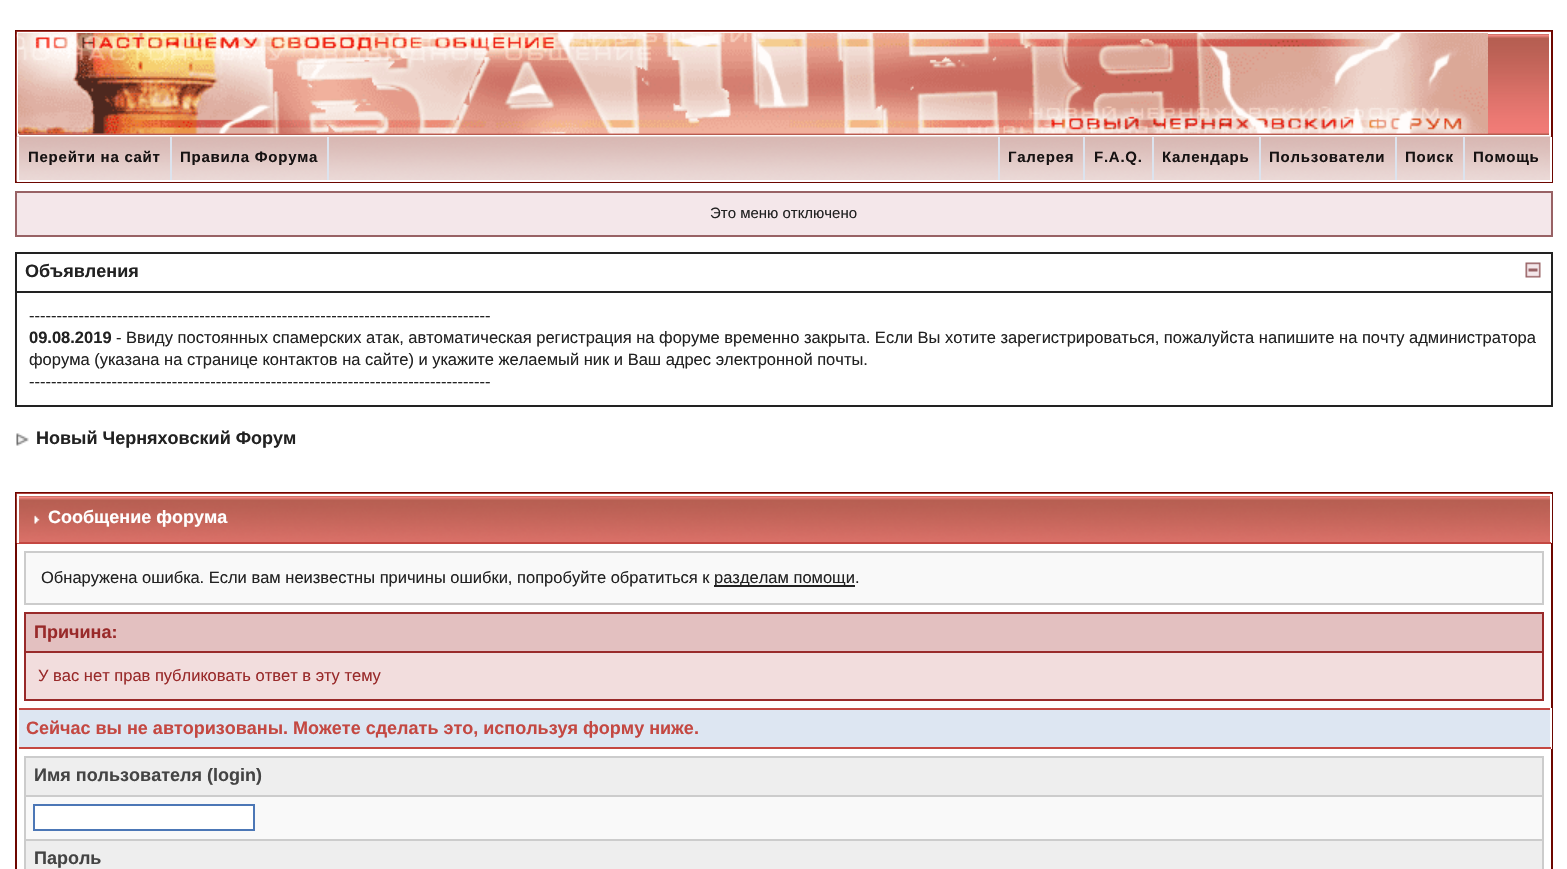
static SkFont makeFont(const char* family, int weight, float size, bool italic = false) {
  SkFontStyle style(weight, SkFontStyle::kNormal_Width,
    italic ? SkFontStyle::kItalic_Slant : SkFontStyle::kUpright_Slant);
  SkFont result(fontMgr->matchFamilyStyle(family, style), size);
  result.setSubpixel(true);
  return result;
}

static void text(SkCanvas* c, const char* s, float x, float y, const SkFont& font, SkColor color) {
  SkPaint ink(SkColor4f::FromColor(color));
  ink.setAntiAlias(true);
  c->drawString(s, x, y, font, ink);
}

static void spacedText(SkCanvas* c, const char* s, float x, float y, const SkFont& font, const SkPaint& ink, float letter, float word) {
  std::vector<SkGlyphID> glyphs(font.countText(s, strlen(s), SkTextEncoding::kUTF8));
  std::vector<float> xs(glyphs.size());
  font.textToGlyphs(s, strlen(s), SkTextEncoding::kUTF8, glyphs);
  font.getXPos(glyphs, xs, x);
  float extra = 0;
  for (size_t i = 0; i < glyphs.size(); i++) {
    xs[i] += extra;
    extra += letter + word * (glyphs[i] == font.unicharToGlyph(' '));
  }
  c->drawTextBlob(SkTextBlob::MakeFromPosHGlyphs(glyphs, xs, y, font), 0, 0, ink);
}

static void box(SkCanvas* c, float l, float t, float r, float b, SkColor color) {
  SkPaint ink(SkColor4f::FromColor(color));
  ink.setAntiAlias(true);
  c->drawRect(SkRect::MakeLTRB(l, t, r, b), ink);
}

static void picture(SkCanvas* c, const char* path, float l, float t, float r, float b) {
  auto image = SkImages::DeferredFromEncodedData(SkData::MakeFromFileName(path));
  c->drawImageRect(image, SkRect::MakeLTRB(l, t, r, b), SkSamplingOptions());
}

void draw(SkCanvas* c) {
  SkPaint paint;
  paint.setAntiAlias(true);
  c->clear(0xffffffff);
  paint.setStyle(SkPaint::kStroke_Style);
  paint.setStrokeWidth(2);
  paint.setColor(0xff6d0600);
  c->drawRect(SkRect::MakeLTRB(16, 31, 1552, 182), paint);
  picture(c, "img_01.png", 16, 31, 1551, 137);
  paint.setColor(0xffffffff);
  c->drawRect(SkRect::MakeLTRB(18, 33, 1550, 136), paint);
  picture(c, "img_02.png", 18, 33, 1488, 134);
  picture(c, "img_03.png", 16, 136, 1551, 182);
  box(c, 1550, 137, 1552, 182, 0xffffffff);
  box(c, 17, 180, 1551, 182, 0xffffffff);
  box(c, 17, 137, 19, 182, 0xffffffff);
  box(c, 170, 137, 172, 180, 0xffdce3ee);
  SkFont face1 = makeFont("Liberation Sans", 700, 15);
  paint.setStyle(SkPaint::kFill_Style);
  paint.setColor(0xff161212);
  spacedText(c, "Перейти на сайт", 28, 162, face1, paint, 0.75f, 0);
  box(c, 327, 137, 329, 180, 0xffdce3ee);
  spacedText(c, "Правила Форума", 180, 162, face1, paint, 0.75f, 0);
  box(c, 998, 137, 1000, 180, 0xffdce3ee);
  spacedText(c, "Галерея", 1008, 162, face1, paint, 0.75f, 0);
  box(c, 1083, 137, 1085, 180, 0xffdce3ee);
  spacedText(c, "F.A.Q.", 1094, 162, face1, paint, 0.75f, 0);
  box(c, 1152, 137, 1154, 180, 0xffdce3ee);
  spacedText(c, "Календарь", 1162, 162, face1, paint, 0.75f, 0);
  box(c, 1259, 137, 1261, 180, 0xffdce3ee);
  spacedText(c, "Пользователи", 1269, 162, face1, paint, 0.75f, 0);
  box(c, 1395, 137, 1397, 180, 0xffdce3ee);
  spacedText(c, "Поиск", 1405, 162, face1, paint, 0.75f, 0);
  box(c, 1463, 137, 1465, 180, 0xffdce3ee);
  spacedText(c, "Помощь", 1473, 162, face1, paint, 0.75f, 0);
  paint.setColor(0xfff4e7ea);
  c->drawRect(SkRect::MakeLTRB(16, 192, 1552, 236), paint);
  paint.setStyle(SkPaint::kStroke_Style);
  paint.setColor(0xff986265);
  c->drawRect(SkRect::MakeLTRB(16, 192, 1552, 236), paint);
  SkFont face2 = makeFont("Liberation Sans", 400, 15);
  text(c, "Это меню отключено", 710, 218, face2, 0xff222222);
  box(c, 1551, 252, 1553, 407, 0xff222222);
  box(c, 15, 405, 1553, 407, 0xff222222);
  box(c, 15, 252, 17, 407, 0xff222222);
  box(c, 17, 252, 1551, 254, 0xff222222);
  box(c, 17, 291, 1551, 293, 0xff222222);
  SkFont face3 = makeFont("Liberation Sans", 700, 18);
  text(c, "Объявления", 25, 277, face3, 0xff222222);
  picture(c, "img_04.png", 1525, 262, 1541, 278);
  SkFont face4 = makeFont("Liberation Sans", 400, 16.5f);
  text(c, "------------------------------------------------------------------------------------", 29, 321, face4, 0xff222222);
  SkFont face5 = makeFont("Liberation Sans", 700, 16.5f);
  text(c, "09.08.2019", 29, 343, face5, 0xff222222);
  text(c, "- Ввиду постоянных спамерских атак, автоматическая регистрация на форуме временно закрыта. Если Вы хотите зарегистрироваться, пожалуйста напишите на почту администратора", 116, 343, face4, 0xff222222);
  text(c, "форума (указана на странице контактов на сайте) и укажите желаемый ник и Ваш адрес электронной почты.", 29, 365, face4, 0xff222222);
  text(c, "------------------------------------------------------------------------------------", 29, 387, face4, 0xff222222);
  picture(c, "img_05.png", 16, 433, 29, 446);
  text(c, "Новый Черняховский Форум", 36, 444, face3, 0xff222222);
  paint.setColor(0xff6d0600);
  c->drawRect(SkRect::MakeLTRB(16, 493, 1552, 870), paint);
  picture(c, "img_06.png", 16, 493, 1551, 543);
  box(c, 17, 494, 1551, 496, 0xffffffff);
  box(c, 1550, 494, 1552, 543, 0xffffffff);
  box(c, 17, 542, 1551, 544, 0xffc44842);
  box(c, 17, 494, 19, 543, 0xffffffff);
  picture(c, "img_07.png", 34, 515, 40, 524);
  text(c, "Сообщение форума", 48, 523, face3, 0xffffffff);
  paint.setStyle(SkPaint::kFill_Style);
  paint.setColor(0xfff9f9f9);
  c->drawRect(SkRect::MakeLTRB(25, 552, 1543, 604), paint);
  paint.setStyle(SkPaint::kStroke_Style);
  paint.setColor(0xffcccccc);
  c->drawRect(SkRect::MakeLTRB(25, 552, 1543, 604), paint);
  text(c, "Обнаружена ошибка. Если вам неизвестны причины ошибки, попробуйте обратиться к", 41, 583, face4, 0xff222222);
  box(c, 714, 585, 855, 587, 0xff222222);
  text(c, "разделам помощи.", 714, 583, face4, 0xff222222);
  box(c, 26, 653, 1542, 699, 0xfff2dddd);
  box(c, 1542, 612, 1544, 701, 0xff992a2a);
  box(c, 24, 699, 1544, 701, 0xff992a2a);
  box(c, 24, 612, 26, 701, 0xff992a2a);
  box(c, 26, 614, 1542, 651, 0xffe3c0c0);
  box(c, 26, 612, 1542, 614, 0xff992a2a);
  box(c, 26, 651, 1542, 653, 0xff992a2a);
  text(c, "Причина:", 34, 638, face3, 0xff992a2a);
  text(c, "У вас нет прав публиковать ответ в эту тему", 38, 681, face4, 0xff992a2a);
  box(c, 19, 710, 1550, 747, 0xffdde6f2);
  box(c, 17, 708, 1551, 710, 0xffc44842);
  box(c, 1550, 708, 1552, 749, 0xffffffff);
  box(c, 17, 747, 1551, 749, 0xffc44842);
  box(c, 17, 708, 19, 749, 0xffffffff);
  text(c, "Сейчас вы не авторизованы. Можете сделать это, используя форму ниже.", 26, 734, face3, 0xffc44842);
  box(c, 26, 797, 1542, 839, 0xfff9f9f9);
  box(c, 1542, 756, 1544, 869, 0xffcccccc);
  box(c, 24, 756, 26, 869, 0xffcccccc);
  box(c, 26, 758, 1542, 795, 0xffeeeeee);
  box(c, 26, 756, 1542, 758, 0xffcccccc);
  box(c, 26, 795, 1542, 797, 0xffcccccc);
  text(c, "Имя пользователя (login)", 34, 781, face3, 0xff444444);
  paint.setStyle(SkPaint::kFill_Style);
  paint.setColor(0xffffffff);
  c->drawRect(SkRect::MakeLTRB(34, 805, 254, 830), paint);
  paint.setStyle(SkPaint::kStroke_Style);
  paint.setColor(0xff4c77b6);
  c->drawRect(SkRect::MakeLTRB(34, 805, 254, 830), paint);
  box(c, 26, 841, 1542, 869, 0xffeeeeee);
  box(c, 26, 839, 1542, 841, 0xffcccccc);
  text(c, "Пароль", 34, 864, face3, 0xff444444);
}
